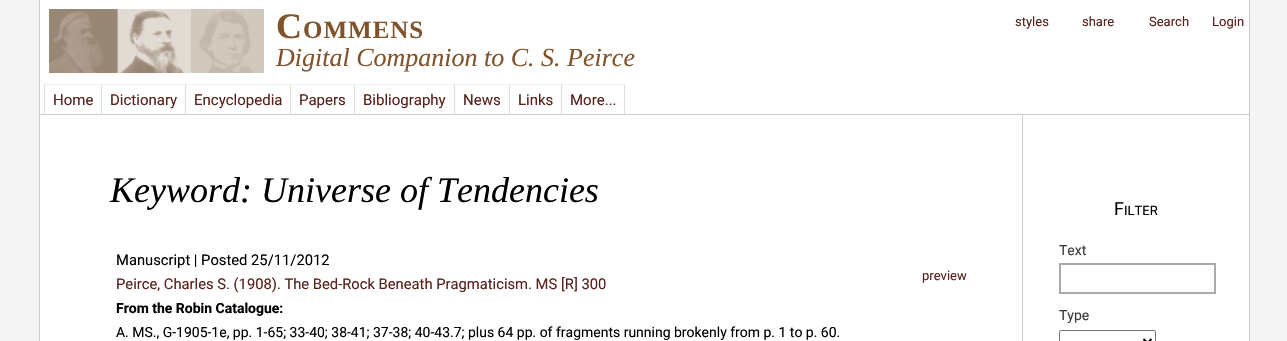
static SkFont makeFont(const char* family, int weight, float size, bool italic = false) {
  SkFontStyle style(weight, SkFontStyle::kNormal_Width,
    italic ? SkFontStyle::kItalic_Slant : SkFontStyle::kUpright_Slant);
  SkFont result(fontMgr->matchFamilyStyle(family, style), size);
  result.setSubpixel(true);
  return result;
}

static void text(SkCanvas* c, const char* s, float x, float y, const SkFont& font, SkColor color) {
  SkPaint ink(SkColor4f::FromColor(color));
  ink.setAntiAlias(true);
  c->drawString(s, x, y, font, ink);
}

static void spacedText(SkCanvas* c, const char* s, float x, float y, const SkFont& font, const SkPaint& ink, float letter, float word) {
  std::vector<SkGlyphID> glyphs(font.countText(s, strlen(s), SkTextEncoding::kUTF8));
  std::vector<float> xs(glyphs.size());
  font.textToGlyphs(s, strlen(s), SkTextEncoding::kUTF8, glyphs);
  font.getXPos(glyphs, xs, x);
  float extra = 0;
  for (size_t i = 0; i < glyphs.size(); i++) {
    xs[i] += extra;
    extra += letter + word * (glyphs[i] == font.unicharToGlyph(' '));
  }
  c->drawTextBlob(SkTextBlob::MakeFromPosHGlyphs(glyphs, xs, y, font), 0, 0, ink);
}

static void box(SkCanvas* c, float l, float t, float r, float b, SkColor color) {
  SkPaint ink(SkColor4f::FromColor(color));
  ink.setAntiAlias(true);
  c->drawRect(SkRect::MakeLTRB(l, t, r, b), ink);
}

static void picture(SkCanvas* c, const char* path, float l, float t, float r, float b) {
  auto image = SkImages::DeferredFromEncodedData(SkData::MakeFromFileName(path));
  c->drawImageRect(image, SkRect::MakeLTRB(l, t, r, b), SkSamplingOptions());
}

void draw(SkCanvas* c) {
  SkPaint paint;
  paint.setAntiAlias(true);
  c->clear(0xfff4f4f4);
  box(c, 40, 0, 1249, 114, 0xffffffff);
  box(c, 39, 0, 40, 84, 0xffcccccc);
  picture(c, "img_01.png", 49, 9, 264, 73);
  SkFont face1 = makeFont("Liberation Serif", 700, 36);
  paint.setColor(0xff80532b);
  spacedText(c, "C", 276, 38, face1, paint, 1, 0);
  SkFont face2 = makeFont("Liberation Serif", 700, 25);
  spacedText(c, "OMMENS", 303, 38, face2, paint, 1, 0);
  SkFont face3 = makeFont("Liberation Serif", 400, 26, true);
  text(c, "Digital Companion to C. S. Peirce", 276, 66, face3, 0xff80532b);
  box(c, 39, 114, 1249, 115, 0xffcccccc);
  box(c, 39, 84, 40, 115, 0xffcccccc);
  SkFont face4 = makeFont("Roboto", 400, 13);
  text(c, "styles", 1015, 26, face4, 0xff57211a);
  text(c, "share", 1082, 26, face4, 0xff57211a);
  text(c, "Search", 1149, 26, face4, 0xff57211a);
  text(c, "Login", 1212, 26, face4, 0xff57211a);
  box(c, 44, 84, 625, 85, 0xffeeeeee);
  box(c, 44, 84, 45, 115, 0xffdddddd);
  SkFont face5 = makeFont("Roboto", 400, 15);
  text(c, "Home", 53, 105, face5, 0xff57211a);
  box(c, 101, 84, 102, 115, 0xffdddddd);
  text(c, "Dictionary", 110, 105, face5, 0xff57211a);
  box(c, 185, 84, 186, 115, 0xffdddddd);
  text(c, "Encyclopedia", 194, 105, face5, 0xff57211a);
  box(c, 290, 84, 291, 115, 0xffdddddd);
  text(c, "Papers", 299, 105, face5, 0xff57211a);
  box(c, 354, 84, 355, 115, 0xffdddddd);
  text(c, "Bibliography", 363, 105, face5, 0xff57211a);
  box(c, 454, 84, 455, 115, 0xffdddddd);
  text(c, "News", 463, 105, face5, 0xff57211a);
  box(c, 509, 84, 510, 115, 0xffdddddd);
  text(c, "Links", 518, 105, face5, 0xff57211a);
  box(c, 624, 84, 625, 115, 0xffdddddd);
  box(c, 561, 84, 562, 115, 0xffdddddd);
  text(c, "More...", 570, 105, face5, 0xff57211a);
  box(c, 40, 115, 1249, 341, 0xffffffff);
  box(c, 1249, 0, 1250, 341, 0xffcccccc);
  box(c, 39, 115, 40, 341, 0xffcccccc);
  box(c, 1022, 115, 1023, 341, 0xffcccccc);
  SkFont face6 = makeFont("Liberation Serif", 400, 36, true);
  text(c, "Keyword: Universe of Tendencies", 110, 202, face6, 0xff000000);
  SkFont face7 = makeFont("Roboto", 400, 14.75f);
  text(c, "Manuscript | Posted 25/11/2012", 116, 265, face7, 0xff000000);
  text(c, "Peirce, Charles S. (1908). The Bed-Rock Beneath Pragmaticism. MS [R] 300", 116, 289, face7, 0xff57211a);
  SkFont face8 = makeFont("Roboto", 700, 13.98f);
  text(c, "From the Robin Catalogue:", 116, 313, face8, 0xff000000);
  SkFont face9 = makeFont("Roboto", 400, 13.98f);
  text(c, "A. MS., G-1905-1e, pp. 1-65; 33-40; 38-41; 37-38; 40-43.7; plus 64 pp. of fragments running brokenly from p. 1 to p. 60.", 116, 337, face9, 0xff000000);
  text(c, "preview", 922, 280, face4, 0xff57211a);
  SkFont face10 = makeFont("Roboto", 400, 18);
  text(c, "F", 1114, 215, face10, 0xff000000);
  text(c, "ILTER", 1124, 215, face4, 0xff000000);
  SkFont face11 = makeFont("Roboto", 400, 14);
  text(c, "Text", 1059, 255, face11, 0xff3b3b3b);
  paint.setStyle(SkPaint::kStroke_Style);
  paint.setStrokeWidth(2);
  paint.setColor(0xffaaaaaa);
  c->drawRect(SkRect::MakeLTRB(1060, 264, 1215, 293), paint);
  text(c, "Type", 1059, 320, face11, 0xff3b3b3b);
  paint.setStrokeWidth(1);
  paint.setColor(0xff767676);
  c->drawRoundRect(SkRect::MakeLTRB(1059.5f, 330.5f, 1155.5f, 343.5f), 1.5f, 1.5f, paint);
  paint.setStrokeWidth(2);
  paint.setColor(0xff000000);
  c->drawPath(SkPathBuilder().moveTo(1143.5f, 339).lineTo(1147.5f, 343).lineTo(1151.5f, 339).detach(), paint);
}
